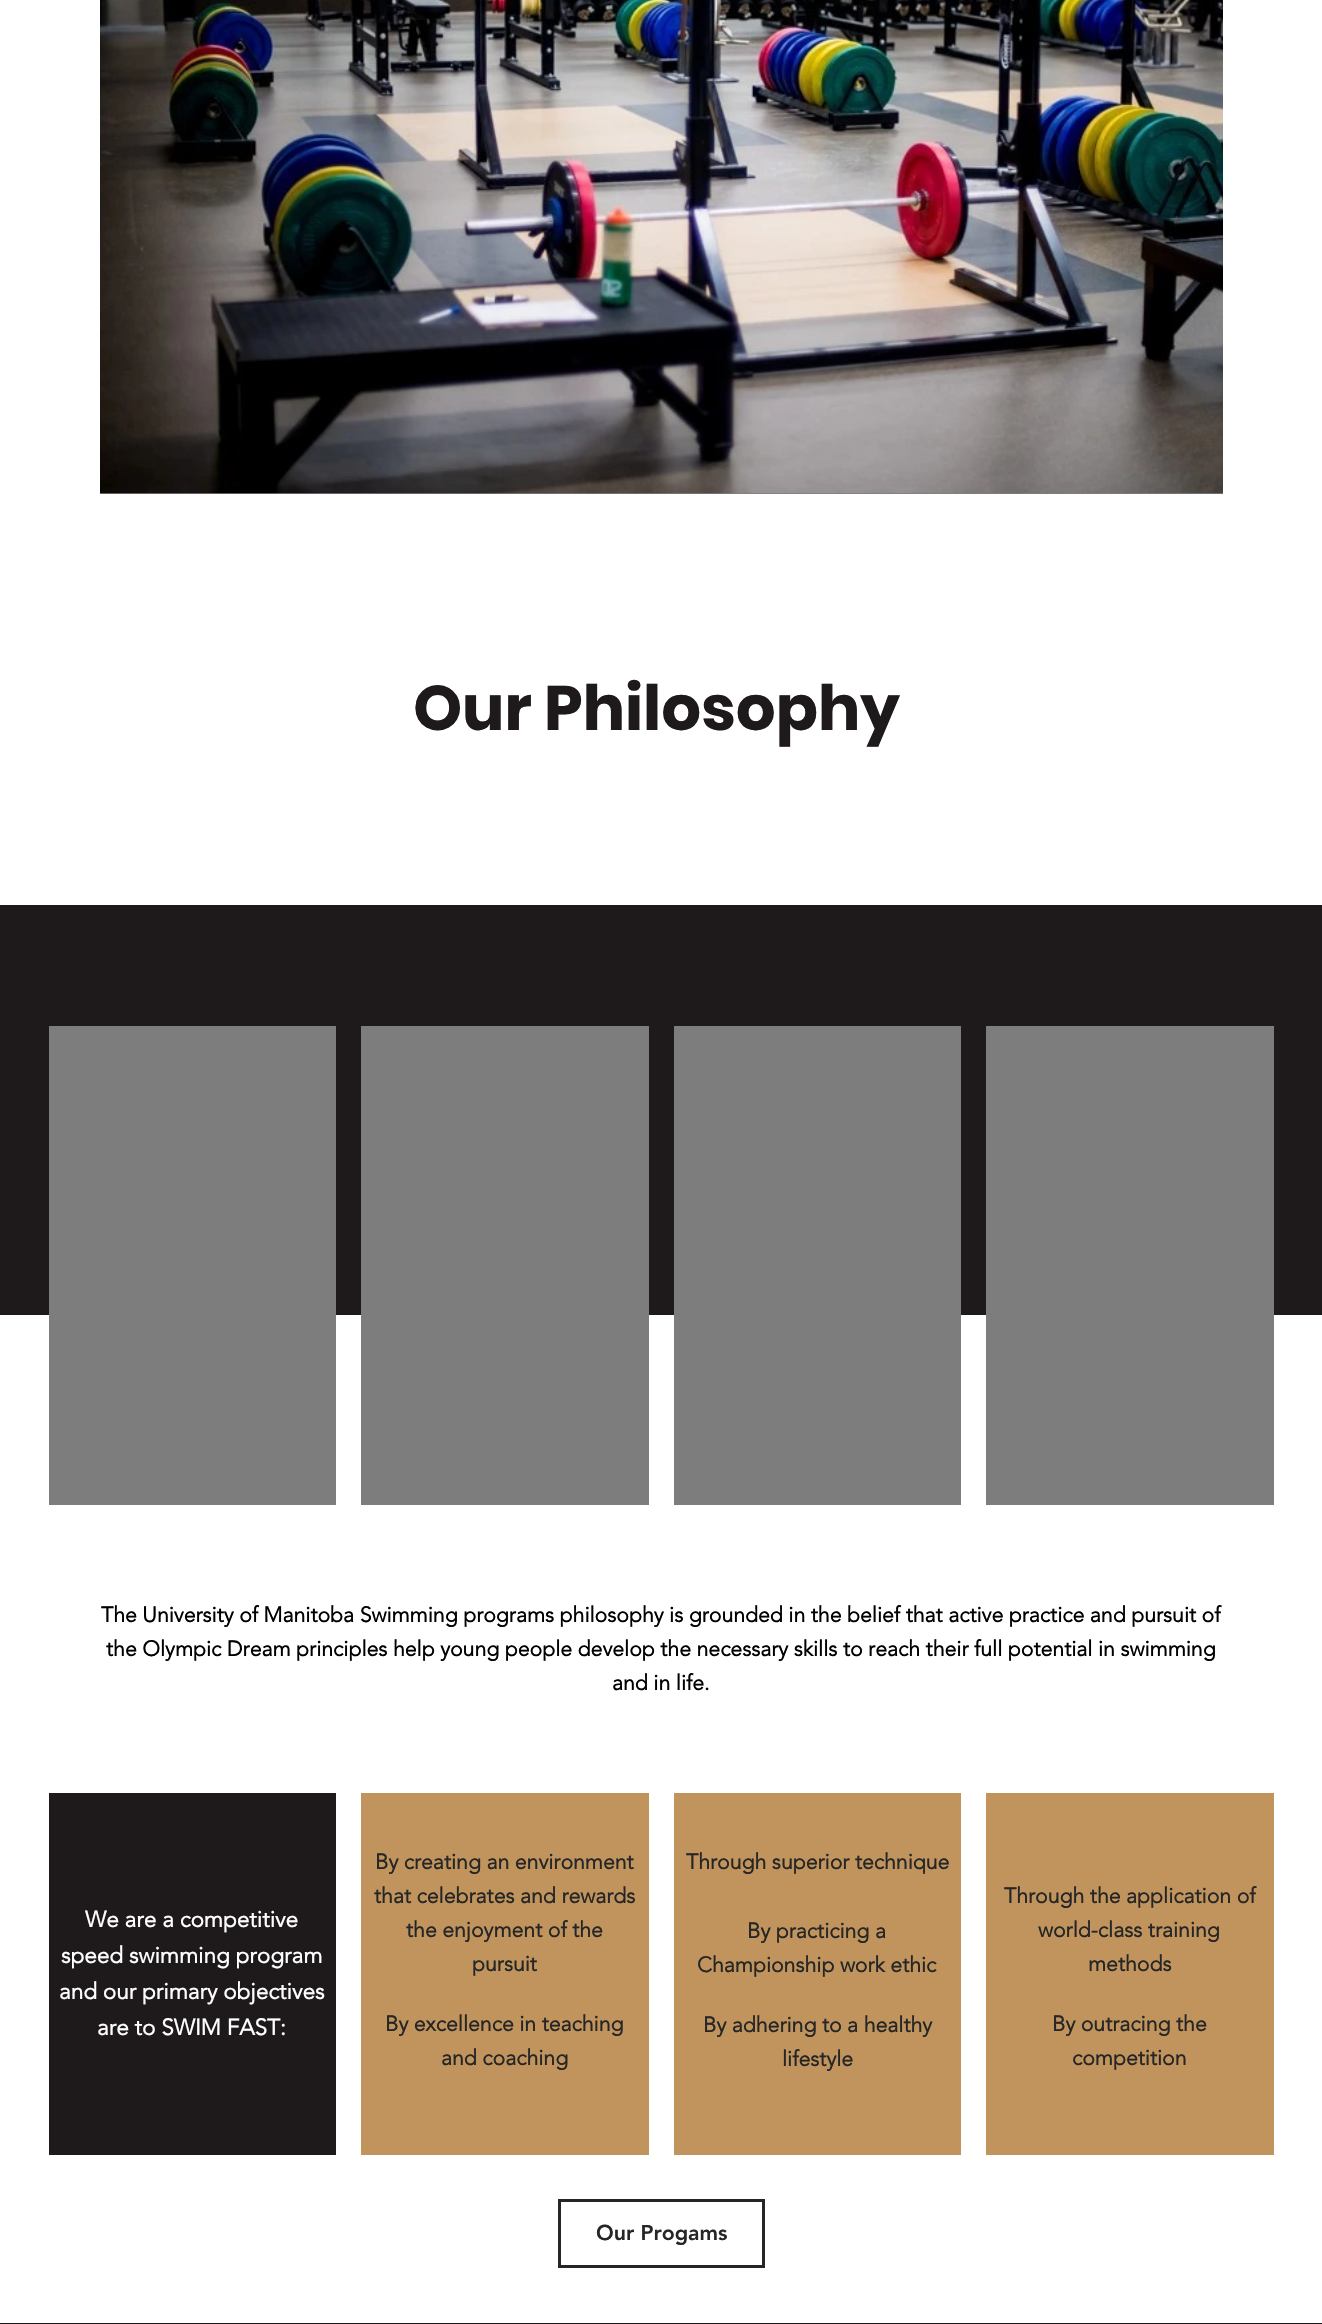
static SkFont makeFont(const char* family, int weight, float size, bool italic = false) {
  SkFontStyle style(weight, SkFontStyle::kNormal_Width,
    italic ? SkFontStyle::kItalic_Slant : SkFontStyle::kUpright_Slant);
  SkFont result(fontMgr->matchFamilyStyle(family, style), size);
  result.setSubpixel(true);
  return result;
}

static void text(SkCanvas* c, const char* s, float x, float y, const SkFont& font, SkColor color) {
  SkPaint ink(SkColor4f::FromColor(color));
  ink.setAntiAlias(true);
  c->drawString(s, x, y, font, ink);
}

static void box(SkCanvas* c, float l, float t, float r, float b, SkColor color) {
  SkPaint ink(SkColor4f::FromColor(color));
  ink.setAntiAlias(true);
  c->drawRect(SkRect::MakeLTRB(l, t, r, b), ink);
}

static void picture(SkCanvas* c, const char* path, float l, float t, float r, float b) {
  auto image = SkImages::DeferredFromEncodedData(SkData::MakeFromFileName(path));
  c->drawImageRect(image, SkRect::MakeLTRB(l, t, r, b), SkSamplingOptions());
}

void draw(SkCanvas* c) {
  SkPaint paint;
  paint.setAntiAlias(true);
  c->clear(0xffffffff);
  box(c, 100, 493, 1223, 494, 0xff7d7d7d);
  picture(c, "img_01.png", 100, 0, 1223, 494);
  SkFont face1 = makeFont("Poppins", 700, 62.5f);
  text(c, "Our Philosophy", 413, 730, face1, 0xff1e191a);
  box(c, 0, 905, 1322, 1315, 0xff1e191a);
  box(c, 49, 1026, 336, 1505, 0xff7d7d7d);
  box(c, 361, 1026, 649, 1505, 0xff7d7d7d);
  box(c, 674, 1026, 961, 1505, 0xff7d7d7d);
  box(c, 986, 1026, 1274, 1505, 0xff7d7d7d);
  SkFont face2 = makeFont("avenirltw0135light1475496", 700, 21.25f);
  text(c, "The University of Manitoba Swimming programs philosophy is grounded in the belief that active practice and pursuit of", 101, 1622, face2, 0xff000000);
  text(c, "the Olympic Dream principles help young people develop the necessary skills to reach their full potential in swimming", 106, 1656, face2, 0xff000000);
  text(c, "and in life.", 612, 1690, face2, 0xff000000);
  box(c, 49, 1793, 336, 2155, 0xff1e191a);
  SkFont face3 = makeFont("avenirltw0135light1475496", 700, 22.5f);
  text(c, "We are a competitive", 85, 1927, face3, 0xffffffff);
  text(c, "speed swimming program", 61, 1963, face3, 0xffffffff);
  text(c, "and our primary objectives", 59, 1999, face3, 0xffffffff);
  text(c, "are to SWIM FAST:", 97, 2035, face3, 0xffffffff);
  box(c, 361, 1793, 649, 2155, 0xffc0945c);
  text(c, "By creating an environment", 375, 1869, face2, 0xff262626);
  text(c, "that celebrates and rewards", 374, 1903, face2, 0xff262626);
  text(c, "the enjoyment of the", 406, 1937, face2, 0xff262626);
  text(c, "pursuit", 472, 1971, face2, 0xff262626);
  text(c, "By excellence in teaching", 385, 2031, face2, 0xff262626);
  text(c, "and coaching", 441, 2065, face2, 0xff262626);
  box(c, 674, 1793, 961, 2155, 0xffc0945c);
  text(c, "Through superior technique", 686, 1869, face2, 0xff262626);
  text(c, "By practicing a", 747, 1938, face2, 0xff262626);
  text(c, "Championship work ethic", 697, 1972, face2, 0xff262626);
  text(c, "By adhering to a healthy", 703, 2032, face2, 0xff262626);
  text(c, "lifestyle", 782, 2066, face2, 0xff262626);
  box(c, 986, 1793, 1274, 2155, 0xffc0945c);
  text(c, "Through the application of", 1004, 1903, face2, 0xff262626);
  text(c, "world-class training", 1038, 1937, face2, 0xff262626);
  text(c, "methods", 1088, 1971, face2, 0xff262626);
  text(c, "By outracing the", 1052, 2031, face2, 0xff262626);
  text(c, "competition", 1072, 2065, face2, 0xff262626);
  paint.setStyle(SkPaint::kStroke_Style);
  paint.setStrokeWidth(3);
  paint.setColor(0xff262626);
  c->drawRect(SkRect::MakeLTRB(559.5f, 2200.5f, 763.5f, 2266.5f), paint);
  SkFont face4 = makeFont("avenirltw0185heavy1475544", 900, 21.25f);
  text(c, "Our Progams", 596, 2240, face4, 0xff262626);
  box(c, 0, 2323, 1322, 2324, 0xff1e191a);
}
